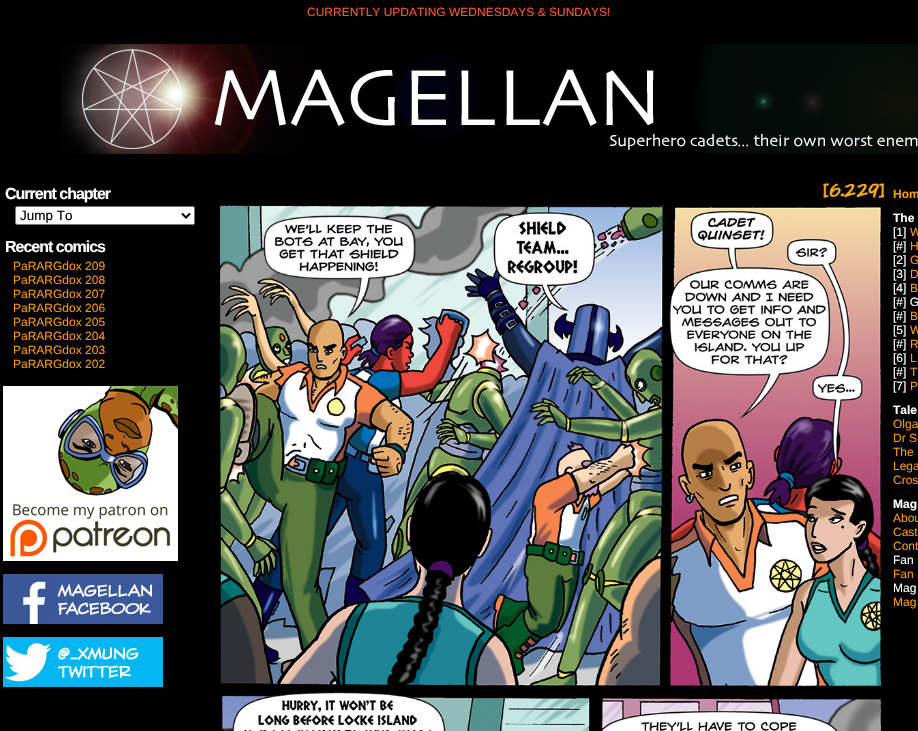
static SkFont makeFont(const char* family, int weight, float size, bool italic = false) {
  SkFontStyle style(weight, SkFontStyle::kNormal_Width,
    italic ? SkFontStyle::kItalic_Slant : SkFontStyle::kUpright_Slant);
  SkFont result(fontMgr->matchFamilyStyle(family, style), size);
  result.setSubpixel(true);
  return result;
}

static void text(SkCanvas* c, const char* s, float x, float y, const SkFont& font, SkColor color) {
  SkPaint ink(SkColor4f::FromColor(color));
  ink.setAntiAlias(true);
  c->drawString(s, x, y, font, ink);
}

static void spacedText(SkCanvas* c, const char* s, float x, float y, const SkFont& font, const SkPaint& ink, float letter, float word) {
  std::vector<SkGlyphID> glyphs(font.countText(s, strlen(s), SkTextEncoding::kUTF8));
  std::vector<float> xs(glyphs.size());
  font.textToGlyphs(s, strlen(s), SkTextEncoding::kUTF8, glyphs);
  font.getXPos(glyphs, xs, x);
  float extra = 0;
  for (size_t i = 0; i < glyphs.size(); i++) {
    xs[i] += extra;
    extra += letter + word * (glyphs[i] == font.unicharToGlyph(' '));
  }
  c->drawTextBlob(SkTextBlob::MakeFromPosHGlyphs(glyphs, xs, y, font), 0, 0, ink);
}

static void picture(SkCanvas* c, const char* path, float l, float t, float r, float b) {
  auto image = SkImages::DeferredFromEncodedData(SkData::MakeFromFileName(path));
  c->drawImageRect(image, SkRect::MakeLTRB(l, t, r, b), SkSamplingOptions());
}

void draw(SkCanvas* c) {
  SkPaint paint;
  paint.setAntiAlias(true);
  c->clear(0xff000000);
  SkFont face1 = makeFont("Liberation Sans", 400, 12);
  text(c, "CURRENTLY UPDATING WEDNESDAYS & SUNDAYS!", 307, 16, face1, 0xffff5733);
  picture(c, "img_01.png", 60, 44, 918, 154);
  SkFont face2 = makeFont("Liberation Sans", 700, 16);
  paint.setColor(0xffffffff);
  spacedText(c, "Current chapter", 5, 199, face2, paint, -1, 0);
  c->drawRoundRect(SkRect::MakeLTRB(15.5f, 206.5f, 194.5f, 224.5f), 1.5f, 1.5f, paint);
  paint.setStyle(SkPaint::kStroke_Style);
  paint.setStrokeWidth(1);
  paint.setColor(0xff767676);
  c->drawRoundRect(SkRect::MakeLTRB(15.5f, 206.5f, 194.5f, 224.5f), 1.5f, 1.5f, paint);
  paint.setStrokeWidth(2);
  paint.setColor(0xff000000);
  c->drawPath(SkPathBuilder().moveTo(182, 213.5f).lineTo(186, 217.5f).lineTo(190, 213.5f).detach(), paint);
  SkFont face3 = makeFont("Liberation Sans", 400, 13.5f);
  text(c, "Jump To", 20, 220, face3, 0xff000000);
  paint.setStyle(SkPaint::kFill_Style);
  paint.setColor(0xffffffff);
  spacedText(c, "Recent comics", 5, 252, face2, paint, -1, 0);
  text(c, "PaRARGdox 209", 13, 270, face1, 0xffff9a00);
  text(c, "PaRARGdox 208", 13, 284, face1, 0xffff9a00);
  text(c, "PaRARGdox 207", 13, 298, face1, 0xffff9a00);
  text(c, "PaRARGdox 206", 13, 312, face1, 0xffff9a00);
  text(c, "PaRARGdox 205", 13, 326, face1, 0xffff9a00);
  text(c, "PaRARGdox 204", 13, 340, face1, 0xffff9a00);
  text(c, "PaRARGdox 203", 13, 354, face1, 0xffff9a00);
  text(c, "PaRARGdox 202", 13, 368, face1, 0xffff9a00);
  picture(c, "img_02.png", 3, 386, 178, 561);
  picture(c, "img_03.png", 3, 574, 163, 624);
  picture(c, "img_04.png", 3, 637, 163, 687);
  picture(c, "img_05.png", 219, 180, 886, 731);
  SkFont face4 = makeFont("Liberation Sans", 700, 12);
  text(c, "Hom", 893, 198, face4, 0xffff9a00);
  text(c, "The", 893, 222, face4, 0xffffffff);
  text(c, "[1]", 893, 236, face1, 0xffffffff);
  text(c, "W", 910, 236, face1, 0xffff9a00);
  text(c, "[#]", 893, 250, face1, 0xffffffff);
  text(c, "H", 910, 250, face1, 0xffff9a00);
  text(c, "[2]", 893, 264, face1, 0xffffffff);
  text(c, "G", 910, 264, face1, 0xffff9a00);
  text(c, "[3]", 893, 278, face1, 0xffffffff);
  text(c, "D", 910, 278, face1, 0xffff9a00);
  text(c, "[4]", 893, 292, face1, 0xffffffff);
  text(c, "B", 910, 292, face1, 0xffff9a00);
  text(c, "[#] G", 893, 306, face1, 0xffffffff);
  text(c, "[#]", 893, 320, face1, 0xffffffff);
  text(c, "B", 910, 320, face1, 0xffff9a00);
  text(c, "[5]", 893, 334, face1, 0xffffffff);
  text(c, "W", 910, 334, face1, 0xffff9a00);
  text(c, "[#]", 893, 348, face1, 0xffffffff);
  text(c, "R", 910, 348, face1, 0xffff9a00);
  text(c, "[6]", 893, 362, face1, 0xffffffff);
  text(c, "L", 910, 362, face1, 0xffff9a00);
  text(c, "[#]", 893, 376, face1, 0xffffffff);
  text(c, "T", 910, 376, face1, 0xffff9a00);
  text(c, "[7]", 893, 390, face1, 0xffffffff);
  text(c, "P", 910, 390, face1, 0xffff9a00);
  text(c, "Tale", 893, 414, face4, 0xffffffff);
  text(c, "Olga", 893, 428, face1, 0xffff9a00);
  text(c, "Dr S", 893, 442, face1, 0xffff9a00);
  text(c, "The", 893, 456, face1, 0xffff9a00);
  text(c, "Lega", 893, 470, face1, 0xffff9a00);
  text(c, "Cros", 893, 484, face1, 0xffff9a00);
  text(c, "Mag", 893, 508, face4, 0xffffffff);
  text(c, "Abou", 893, 522, face1, 0xffff9a00);
  text(c, "Cast", 893, 536, face1, 0xffff9a00);
  text(c, "Cont", 893, 550, face1, 0xffff9a00);
  text(c, "Fan", 893, 564, face1, 0xffffffff);
  text(c, "Fan", 893, 578, face1, 0xffff9a00);
  text(c, "Mag", 893, 592, face1, 0xffffffff);
  text(c, "Mag", 893, 606, face1, 0xffff9a00);
}
